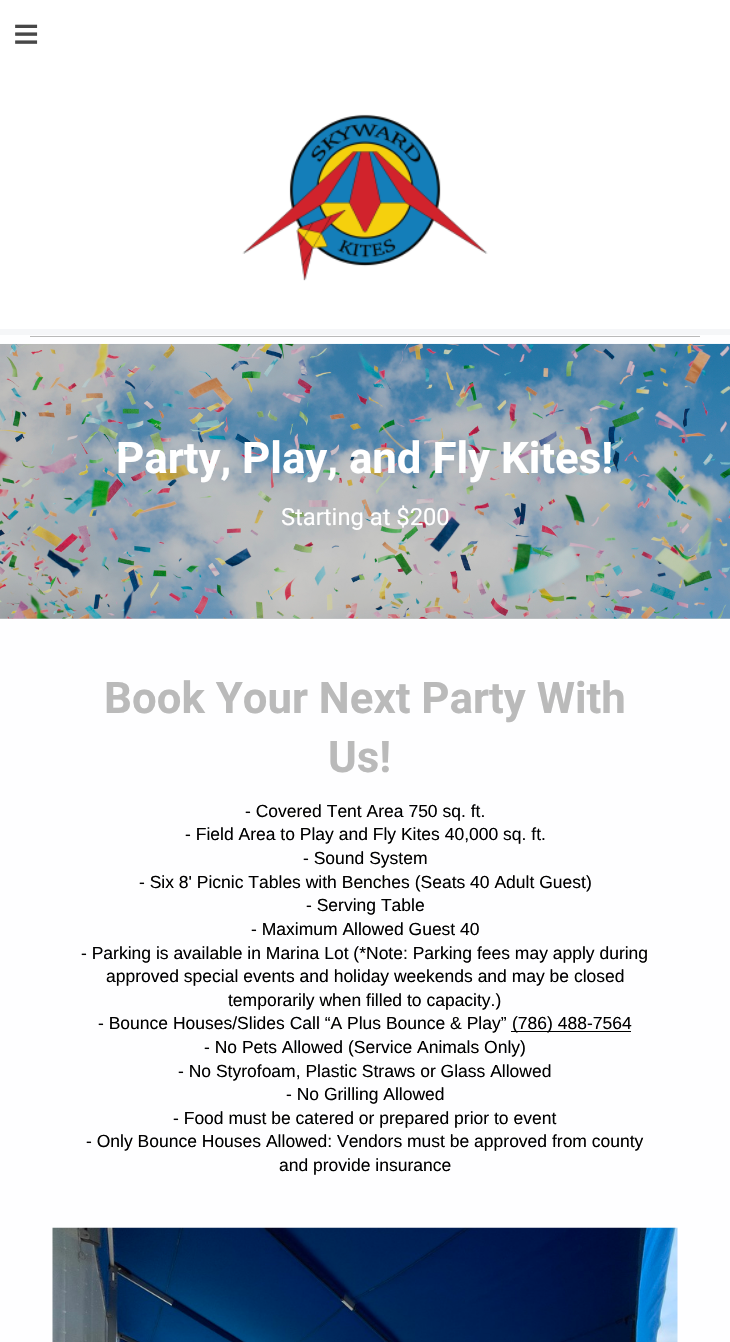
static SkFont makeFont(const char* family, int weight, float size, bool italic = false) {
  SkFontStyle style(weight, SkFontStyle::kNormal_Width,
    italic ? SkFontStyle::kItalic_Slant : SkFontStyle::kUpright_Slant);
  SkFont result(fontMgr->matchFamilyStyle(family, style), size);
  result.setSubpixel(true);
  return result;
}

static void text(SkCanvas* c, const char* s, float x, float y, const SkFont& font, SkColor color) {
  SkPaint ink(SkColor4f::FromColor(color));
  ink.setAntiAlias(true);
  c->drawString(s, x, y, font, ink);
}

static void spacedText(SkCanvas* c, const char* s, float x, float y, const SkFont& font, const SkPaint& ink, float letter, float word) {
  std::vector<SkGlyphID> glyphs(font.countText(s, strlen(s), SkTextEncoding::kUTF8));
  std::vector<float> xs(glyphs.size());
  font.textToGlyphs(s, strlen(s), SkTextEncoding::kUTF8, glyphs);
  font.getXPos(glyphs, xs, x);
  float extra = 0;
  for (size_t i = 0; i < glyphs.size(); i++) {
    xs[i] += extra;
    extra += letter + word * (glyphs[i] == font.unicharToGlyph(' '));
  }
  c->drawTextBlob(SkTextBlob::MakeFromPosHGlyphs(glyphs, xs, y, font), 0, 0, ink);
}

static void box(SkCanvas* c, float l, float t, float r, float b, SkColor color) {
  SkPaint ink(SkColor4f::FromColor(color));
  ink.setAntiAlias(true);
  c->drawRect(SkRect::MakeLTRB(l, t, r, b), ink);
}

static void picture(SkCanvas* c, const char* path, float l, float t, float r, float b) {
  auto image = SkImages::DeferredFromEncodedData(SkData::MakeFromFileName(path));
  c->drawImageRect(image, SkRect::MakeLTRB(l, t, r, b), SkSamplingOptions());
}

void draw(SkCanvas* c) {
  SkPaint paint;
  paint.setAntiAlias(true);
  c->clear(0xfff5f6f8);
  box(c, 0, 0, 730, 329, 0xffffffff);
  SkFont face1 = makeFont("Liberation Sans", 400, 45);
  paint.setColor(0xff474747);
  spacedText(c, "≡", 13, 49, face1, paint, 13, 0);
  picture(c, "img_01.png", 242, 114, 488, 281);
  box(c, 0, 335, 730, 1342, 0xfffefeff);
  box(c, 0, 618, 730, 619, 0xffcbcbcc);
  box(c, 30, 336, 700, 337, 0xffbababa);
  picture(c, "img_02.png", 0, 343, 730, 619);
  SkFont face2 = makeFont("Roboto", 700, 43.75f);
  text(c, "Party, Play, and Fly Kites!", 116, 473, face2, 0xffffffff);
  SkFont face3 = makeFont("Roboto", 400, 23.75f);
  text(c, "Starting at $200", 281, 525, face3, 0xffffffff);
  text(c, "Book Your Next Party With", 104, 713, face2, 0xffbababa);
  text(c, "Us!", 328, 772, face2, 0xffbababa);
  SkFont face4 = makeFont("Liberation Sans", 400, 17.5f);
  text(c, "- Covered Tent Area 750 sq. ft.", 245, 817, face4, 0xff000000);
  text(c, "- Field Area to Play and Fly Kites 40,000 sq. ft.", 185, 840, face4, 0xff000000);
  text(c, "- Sound System", 303, 864, face4, 0xff000000);
  text(c, "- Six 8' Picnic Tables with Benches (Seats 40 Adult Guest)", 139, 888, face4, 0xff000000);
  text(c, "- Serving Table", 306, 911, face4, 0xff000000);
  text(c, "- Maximum Allowed Guest 40", 251, 935, face4, 0xff000000);
  text(c, "- Parking is available in Marina Lot (*Note: Parking fees may apply during", 81, 959, face4, 0xff000000);
  text(c, "approved special events and holiday weekends and may be closed", 106, 982, face4, 0xff000000);
  text(c, "temporarily when filled to capacity.)", 228, 1006, face4, 0xff000000);
  text(c, "- Bounce Houses/Slides Call “A Plus Bounce & Play”", 98, 1029, face4, 0xff000000);
  box(c, 511, 1031, 631, 1032, 0xff000000);
  text(c, "(786) 488-7564", 512, 1029, face4, 0xff000000);
  text(c, "- No Pets Allowed (Service Animals Only)", 204, 1053, face4, 0xff000000);
  text(c, "- No Styrofoam, Plastic Straws or Glass Allowed", 178, 1077, face4, 0xff000000);
  text(c, "- No Grilling Allowed", 286, 1100, face4, 0xff000000);
  text(c, "- Food must be catered or prepared prior to event", 173, 1124, face4, 0xff000000);
  text(c, "- Only Bounce Houses Allowed: Vendors must be approved from county", 86, 1147, face4, 0xff000000);
  text(c, "and provide insurance", 279, 1171, face4, 0xff000000);
  picture(c, "img_03.png", 52, 1227, 678, 1342);
}
